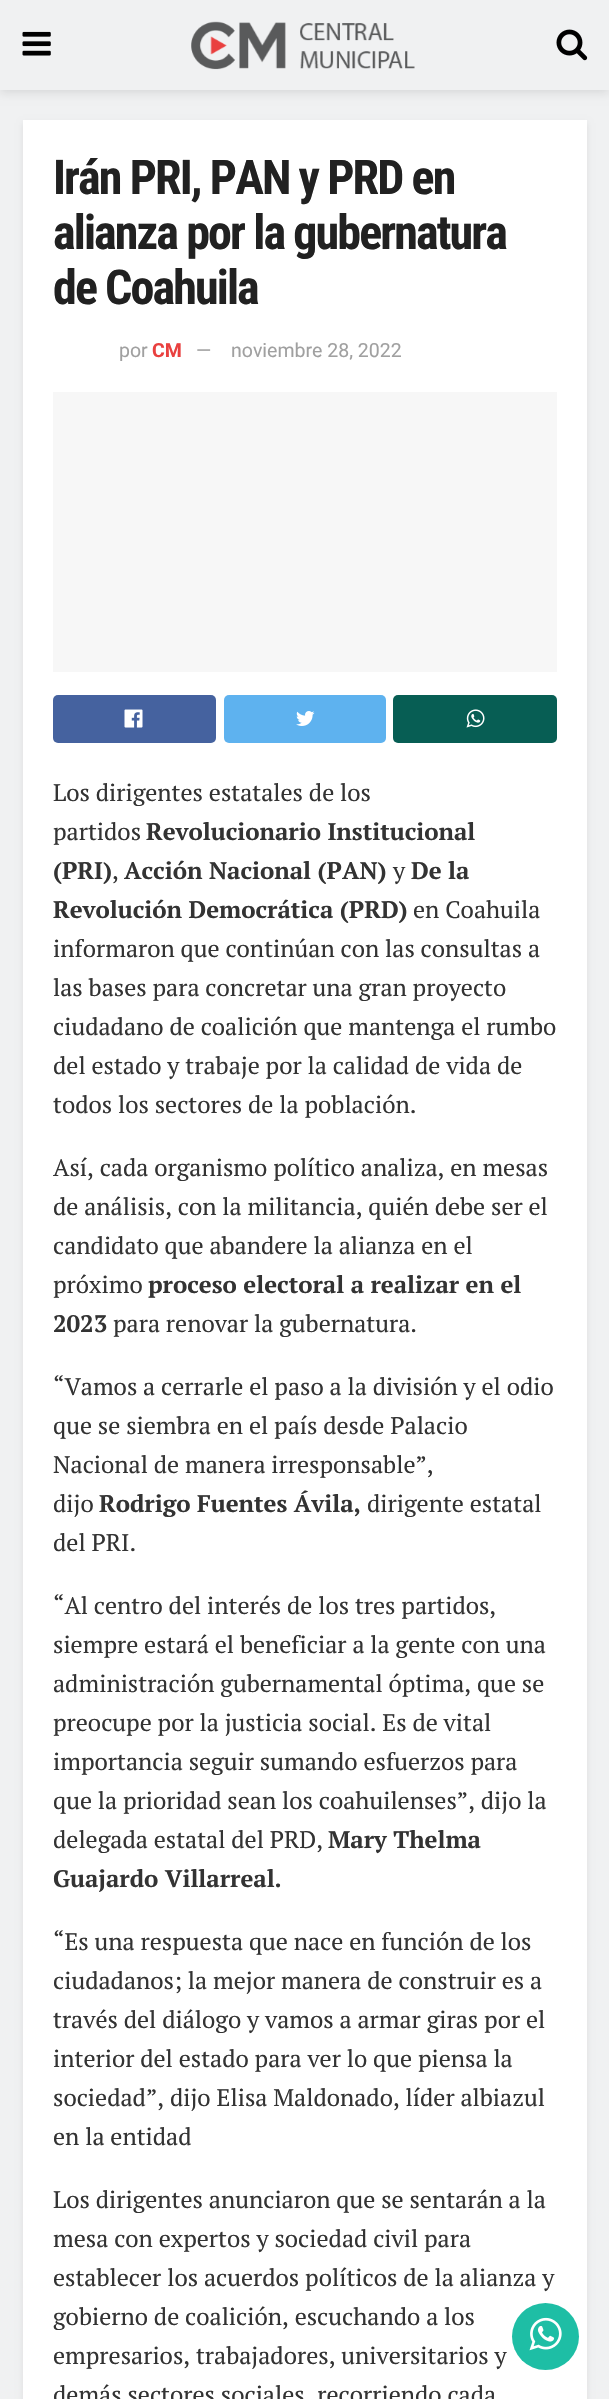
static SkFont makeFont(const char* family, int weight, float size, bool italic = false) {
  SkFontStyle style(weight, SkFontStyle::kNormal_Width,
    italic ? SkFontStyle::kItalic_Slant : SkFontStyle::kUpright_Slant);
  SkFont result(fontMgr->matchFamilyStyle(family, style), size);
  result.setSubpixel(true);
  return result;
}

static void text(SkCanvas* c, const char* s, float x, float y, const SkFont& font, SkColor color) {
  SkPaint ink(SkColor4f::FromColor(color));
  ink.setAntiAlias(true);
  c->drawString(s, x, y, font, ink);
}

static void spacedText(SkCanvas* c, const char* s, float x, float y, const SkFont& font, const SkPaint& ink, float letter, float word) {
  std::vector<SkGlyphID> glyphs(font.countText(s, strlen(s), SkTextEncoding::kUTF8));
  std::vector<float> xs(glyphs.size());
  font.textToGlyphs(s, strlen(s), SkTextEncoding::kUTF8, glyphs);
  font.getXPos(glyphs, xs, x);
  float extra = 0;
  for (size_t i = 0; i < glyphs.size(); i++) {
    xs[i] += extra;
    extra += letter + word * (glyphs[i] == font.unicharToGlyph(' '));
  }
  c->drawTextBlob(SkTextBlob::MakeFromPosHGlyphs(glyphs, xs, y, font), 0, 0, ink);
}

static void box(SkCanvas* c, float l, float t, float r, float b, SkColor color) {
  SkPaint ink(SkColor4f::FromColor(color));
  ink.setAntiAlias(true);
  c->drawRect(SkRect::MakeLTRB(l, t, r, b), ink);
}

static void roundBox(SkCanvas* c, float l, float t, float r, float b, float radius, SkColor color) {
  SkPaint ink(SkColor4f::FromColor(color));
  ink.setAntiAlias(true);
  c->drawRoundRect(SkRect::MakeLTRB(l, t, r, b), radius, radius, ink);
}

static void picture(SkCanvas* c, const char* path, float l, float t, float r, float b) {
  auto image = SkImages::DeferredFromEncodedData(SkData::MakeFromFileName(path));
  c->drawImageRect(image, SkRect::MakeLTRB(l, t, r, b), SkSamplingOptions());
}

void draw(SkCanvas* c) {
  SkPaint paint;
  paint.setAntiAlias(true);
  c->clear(0xfff0f1f2);
  paint.setColor(0x1a000000);
  paint.setMaskFilter(SkMaskFilter::MakeBlur(kNormal_SkBlurStyle, 4.5f));
  c->drawRect(SkRect::MakeLTRB(0, 3, 609, 93), paint);
  paint.setMaskFilter(nullptr);
  box(c, 0, 0, 609, 90, 0xfff0f1f2);
  picture(c, "img_01.png", 22, 31, 51, 56);
  picture(c, "img_02.png", 191, 21, 415, 70);
  picture(c, "img_03.png", 556, 29, 588, 61);
  paint.setColor(0x14000000);
  paint.setMaskFilter(SkMaskFilter::MakeBlur(kNormal_SkBlurStyle, 3));
  c->drawRect(SkRect::MakeLTRB(23, 123, 587, 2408), paint);
  paint.setMaskFilter(nullptr);
  box(c, 23, 120, 587, 2399, 0xffffffff);
  SkFont face1 = makeFont("Roboto Condensed", 700, 48);
  paint.setColor(0xff212121);
  spacedText(c, "Irán PRI, PAN y PRD en", 53, 194, face1, paint, -1.9f, 0);
  spacedText(c, "alianza por la gubernatura", 53, 249, face1, paint, -1.9f, 0);
  spacedText(c, "de Coahuila", 53, 304, face1, paint, -1.9f, 0);
  SkFont face2 = makeFont("Roboto", 400, 19.5f);
  text(c, "por", 119, 357, face2, 0xffa0a0a0);
  SkFont face3 = makeFont("Roboto", 700, 19.5f);
  text(c, "CM", 152, 357, face3, 0xffe9403f);
  text(c, "—", 196, 357, face2, 0xffa0a0a0);
  text(c, "noviembre 28, 2022", 231, 357, face2, 0xffa0a0a0);
  box(c, 53, 392, 557, 672, 0xfff7f7f7);
  roundBox(c, 53, 695, 216, 743, 5, 0xff45629f);
  picture(c, "img_04.png", 124, 709, 143, 728);
  roundBox(c, 224, 695, 386, 743, 5, 0xff5eb2ef);
  picture(c, "img_05.png", 296, 711, 315, 726);
  roundBox(c, 393, 695, 557, 743, 5, 0xff075e54);
  picture(c, "img_06.png", 466, 709, 485, 728);
  SkFont face4 = makeFont("PT Serif", 400, 24);
  text(c, "Los dirigentes estatales de los", 53, 801, face4, 0xff333333);
  text(c, "partidos", 53, 840, face4, 0xff333333);
  SkFont face5 = makeFont("PT Serif", 700, 24);
  text(c, "Revolucionario Institucional", 146, 840, face5, 0xff333333);
  text(c, "(PRI)", 53, 879, face5, 0xff333333);
  text(c, ",", 112, 879, face4, 0xff333333);
  text(c, "Acción Nacional (PAN)", 124, 879, face5, 0xff333333);
  text(c, "y", 393, 879, face4, 0xff333333);
  text(c, "De la", 411, 879, face5, 0xff333333);
  text(c, "Revolución Democrática (PRD)", 53, 918, face5, 0xff333333);
  text(c, "en Coahuila", 413, 918, face4, 0xff333333);
  text(c, "informaron que continúan con las consultas a", 53, 957, face4, 0xff333333);
  text(c, "las bases para concretar una gran proyecto", 53, 996, face4, 0xff333333);
  text(c, "ciudadano de coalición que mantenga el rumbo", 53, 1035, face4, 0xff333333);
  text(c, "del estado y trabaje por la calidad de vida de", 53, 1074, face4, 0xff333333);
  text(c, "todos los sectores de la población.", 53, 1113, face4, 0xff333333);
  text(c, "Así, cada organismo político analiza, en mesas", 53, 1176, face4, 0xff333333);
  text(c, "de análisis, con la militancia, quién debe ser el", 53, 1215, face4, 0xff333333);
  text(c, "candidato que abandere la alianza en el", 53, 1254, face4, 0xff333333);
  text(c, "próximo", 53, 1293, face4, 0xff333333);
  text(c, "proceso electoral a realizar en el", 148, 1293, face5, 0xff333333);
  text(c, "2023", 53, 1332, face5, 0xff333333);
  text(c, "para renovar la gubernatura.", 113, 1332, face4, 0xff333333);
  text(c, "“Vamos a cerrarle el paso a la división y el odio", 53, 1395, face4, 0xff333333);
  text(c, "que se siembra en el país desde Palacio", 53, 1434, face4, 0xff333333);
  text(c, "Nacional de manera irresponsable”,", 53, 1473, face4, 0xff333333);
  text(c, "dijo", 53, 1512, face4, 0xff333333);
  text(c, "Rodrigo Fuentes Ávila,", 99, 1512, face5, 0xff333333);
  text(c, "dirigente estatal", 367, 1512, face4, 0xff333333);
  text(c, "del PRI.", 53, 1551, face4, 0xff333333);
  text(c, "“Al centro del interés de los tres partidos,", 53, 1614, face4, 0xff333333);
  text(c, "siempre estará el beneficiar a la gente con una", 53, 1653, face4, 0xff333333);
  text(c, "administración gubernamental óptima, que se", 53, 1692, face4, 0xff333333);
  text(c, "preocupe por la justicia social. Es de vital", 53, 1731, face4, 0xff333333);
  text(c, "importancia seguir sumando esfuerzos para", 53, 1770, face4, 0xff333333);
  text(c, "que la prioridad sean los coahuilenses”, dijo la", 53, 1809, face4, 0xff333333);
  text(c, "delegada estatal del PRD,", 53, 1848, face4, 0xff333333);
  text(c, "Mary Thelma", 328, 1848, face5, 0xff333333);
  text(c, "Guajardo Villarreal.", 53, 1887, face5, 0xff333333);
  text(c, "“Es una respuesta que nace en función de los", 53, 1950, face4, 0xff333333);
  text(c, "ciudadanos; la mejor manera de construir es a", 53, 1989, face4, 0xff333333);
  text(c, "través del diálogo y vamos a armar giras por el", 53, 2028, face4, 0xff333333);
  text(c, "interior del estado para ver lo que piensa la", 53, 2067, face4, 0xff333333);
  text(c, "sociedad”, dijo Elisa Maldonado, líder albiazul", 53, 2106, face4, 0xff333333);
  text(c, "en la entidad", 53, 2145, face4, 0xff333333);
  text(c, "Los dirigentes anunciaron que se sentarán a la", 53, 2208, face4, 0xff333333);
  text(c, "mesa con expertos y sociedad civil para", 53, 2247, face4, 0xff333333);
  text(c, "establecer los acuerdos políticos de la alianza y", 53, 2286, face4, 0xff333333);
  text(c, "gobierno de coalición, escuchando a los", 53, 2325, face4, 0xff333333);
  text(c, "empresarios, trabajadores, universitarios y", 53, 2364, face4, 0xff333333);
  text(c, "demás sectores sociales, recorriendo cada", 53, 2403, face4, 0xff333333);
  paint.setColor(0xff1ebea5);
  c->drawCircle(545.5f, 2336.5f, 33.5f, paint);
  picture(c, "img_07.png", 529, 2317, 562, 2351);
}
